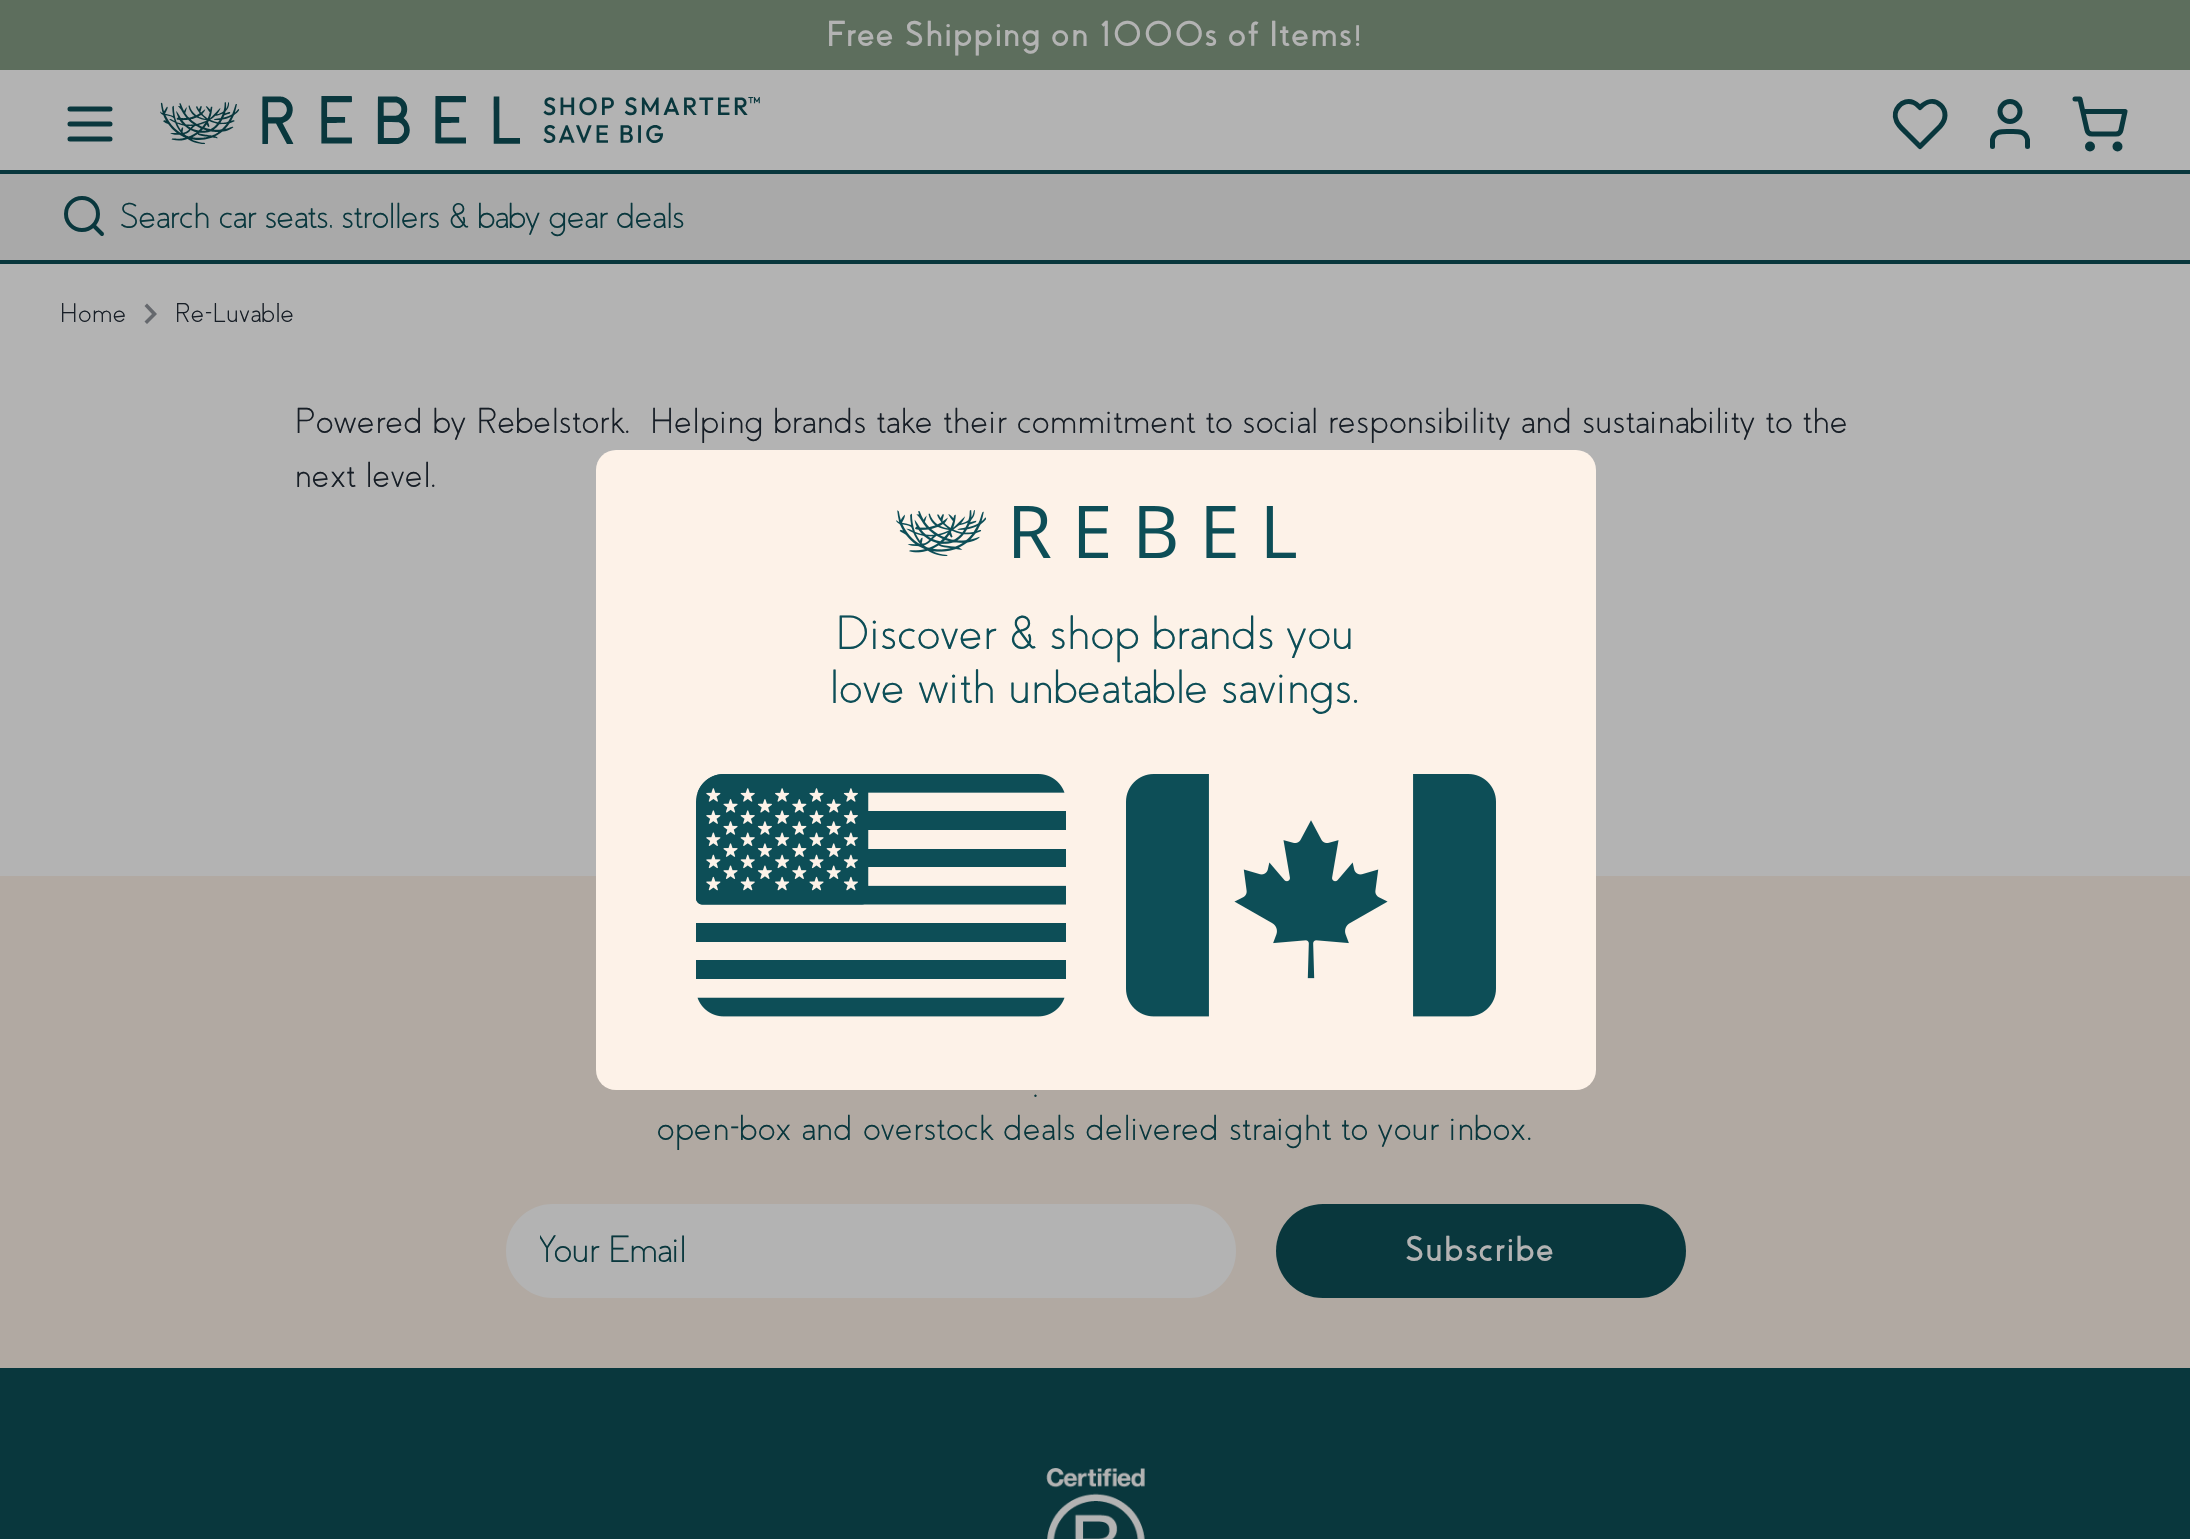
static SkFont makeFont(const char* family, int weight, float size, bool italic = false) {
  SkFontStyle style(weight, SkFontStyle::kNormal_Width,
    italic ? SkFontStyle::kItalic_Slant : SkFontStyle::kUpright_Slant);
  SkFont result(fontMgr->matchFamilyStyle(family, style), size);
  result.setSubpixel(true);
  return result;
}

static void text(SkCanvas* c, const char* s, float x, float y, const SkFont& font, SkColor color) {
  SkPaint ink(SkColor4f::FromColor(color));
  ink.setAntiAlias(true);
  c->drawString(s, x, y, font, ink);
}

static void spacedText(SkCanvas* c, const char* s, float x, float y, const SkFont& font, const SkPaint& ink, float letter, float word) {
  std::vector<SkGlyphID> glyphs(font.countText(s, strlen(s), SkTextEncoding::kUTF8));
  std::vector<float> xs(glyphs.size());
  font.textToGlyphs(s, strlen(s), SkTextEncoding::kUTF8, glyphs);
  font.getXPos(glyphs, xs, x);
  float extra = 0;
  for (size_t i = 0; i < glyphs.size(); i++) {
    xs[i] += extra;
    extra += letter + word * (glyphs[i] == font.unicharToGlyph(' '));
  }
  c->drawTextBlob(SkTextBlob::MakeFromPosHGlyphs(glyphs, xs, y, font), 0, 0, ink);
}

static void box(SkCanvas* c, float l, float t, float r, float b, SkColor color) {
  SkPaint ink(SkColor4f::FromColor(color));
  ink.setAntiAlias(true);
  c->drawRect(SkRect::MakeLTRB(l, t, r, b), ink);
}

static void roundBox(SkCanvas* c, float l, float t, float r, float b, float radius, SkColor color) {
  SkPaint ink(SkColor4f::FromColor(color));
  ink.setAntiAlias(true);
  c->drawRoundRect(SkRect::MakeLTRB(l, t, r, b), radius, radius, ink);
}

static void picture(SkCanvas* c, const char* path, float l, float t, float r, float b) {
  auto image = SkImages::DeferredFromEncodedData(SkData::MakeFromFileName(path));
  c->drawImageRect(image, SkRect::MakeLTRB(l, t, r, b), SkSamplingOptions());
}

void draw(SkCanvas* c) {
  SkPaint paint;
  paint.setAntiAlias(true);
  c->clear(0xffb3b3b3);
  box(c, 0, 0, 2190, 70, 0xff5d6e5d);
  SkFont face1 = makeFont("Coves", 700, 36);
  paint.setColor(0xffb3b3b3);
  spacedText(c, "Free Shipping on 1000s of Items!", 826, 46, face1, paint, 0.9f, 0);
  paint.setStyle(SkPaint::kStroke_Style);
  paint.setStrokeWidth(5);
  paint.setStrokeCap(SkPaint::kRound_Cap);
  paint.setStrokeJoin(SkPaint::kRound_Join);
  paint.setColor(0xff09373d);
  c->drawPath(SkPathBuilder().moveTo(70, 124).lineTo(110, 124).moveTo(70, 109).lineTo(110, 109).moveTo(70, 139).lineTo(110, 139).detach(), paint);
  picture(c, "img_01.png", 160, 96, 760, 144);
  c->drawPath(SkPathBuilder().moveTo(1941, 105.5f).cubicTo(1934, 98.5f, 1926, 101.5f, 1920, 107.5f).cubicTo(1918, 105.5f, 1916.5f, 103.5f, 1913.5f, 102.5f).cubicTo(1902.5f, 98, 1891.5f, 110, 1896.5f, 121).cubicTo(1898.5f, 126, 1903, 129.5f, 1906.5f, 133).lineTo(1920, 146.5f).lineTo(1940, 126.5f).cubicTo(1946.5f, 119.5f, 1946.5f, 111, 1941, 105.5f).close().detach(), paint);
  c->drawPath(SkPathBuilder().moveTo(2027.5f, 146.5f).lineTo(2027.5f, 139.5f).cubicTo(2025.5f, 130.5f, 2017, 131.5f, 2010, 131.5f).cubicTo(2003, 131.5f, 1994.5f, 130.5f, 1992.5f, 139.5f).lineTo(1992.5f, 146.5f).detach(), paint);
  paint.setStrokeCap(SkPaint::kButt_Cap);
  paint.setStrokeJoin(SkPaint::kMiter_Join);
  c->drawCircle(2010, 111.5f, 10, paint);
  c->drawCircle(2090, 146.5f, 2.5f, paint);
  c->drawCircle(2117.5f, 146.5f, 2.5f, paint);
  paint.setStrokeCap(SkPaint::kRound_Cap);
  paint.setStrokeJoin(SkPaint::kRound_Join);
  c->drawPath(SkPathBuilder().moveTo(2075, 99).lineTo(2080, 99).lineTo(2087, 130).cubicTo(2087.5f, 132.5f, 2089.5f, 134, 2092, 134).lineTo(2116, 134).cubicTo(2118.5f, 134, 2120.5f, 132.5f, 2121, 130).lineTo(2125, 111.5f).lineTo(2083, 111.5f).detach(), paint);
  box(c, 0, 174, 2190, 260, 0xffa9a9a9);
  box(c, 0, 170, 2190, 174, 0xff09373d);
  box(c, 0, 260, 2190, 264, 0xff09373d);
  paint.setStrokeWidth(4);
  paint.setStrokeCap(SkPaint::kButt_Cap);
  paint.setStrokeJoin(SkPaint::kMiter_Join);
  c->drawCircle(82, 214, 16, paint);
  paint.setStrokeCap(SkPaint::kRound_Cap);
  paint.setStrokeJoin(SkPaint::kRound_Join);
  c->drawPath(SkPathBuilder().moveTo(102, 234).lineTo(93.5f, 225.5f).detach(), paint);
  SkFont face2 = makeFont("Coves", 300, 36);
  text(c, "Search car seats, strollers & baby gear deals", 120, 228, face2, 0xff09373d);
  SkFont face3 = makeFont("Coves", 300, 27);
  paint.setStyle(SkPaint::kFill_Style);
  paint.setColor(0xff171e26);
  spacedText(c, "Home", 60, 322, face3, paint, 0.9f, 0);
  paint.setColor(0xff65686d);
  c->drawPath(SkPathBuilder().moveTo(144.5f, 321.5f).lineTo(152, 314).lineTo(144.5f, 306).lineTo(147, 303.5f).lineTo(157, 314).lineTo(147, 324).close().detach(), paint);
  paint.setColor(0xff171e26);
  spacedText(c, "Re-Luvable", 175, 322, face3, paint, 0.9f, 0);
  spacedText(c, "Powered by Rebelstork.  Helping brands take their commitment to social responsibility and sustainability to the", 295, 433, face2, paint, 0.9f, 0);
  spacedText(c, "next level.", 295, 487, face2, paint, 0.9f, 0);
  box(c, 0, 876, 2190, 1368, 0xffb1a9a2);
  roundBox(c, 596, 450, 1596, 1090, 20, 0xfffdf2e8);
  picture(c, "img_02.png", 896, 506, 1296, 558);
  SkFont face4 = makeFont("Coves", 300, 48);
  paint.setColor(0xff0d4e57);
  spacedText(c, "Discover & shop brands you", 836, 649, face4, paint, 0.9f, 0);
  spacedText(c, "love with unbeatable savings.", 830, 703, face4, paint, 0.9f, 0);
  picture(c, "img_03.png", 696, 774, 1066, 1017);
  picture(c, "img_04.png", 1126, 774, 1496, 1017);
  paint.setColor(0xff09373d);
  spacedText(c, ".", 1033, 1097, face2, paint, 0.9f, 0);
  spacedText(c, "open-box and overstock deals delivered straight to your inbox.", 657, 1140, face2, paint, 0.9f, 0);
  paint.setColor(0xffb3b3b3);
  c->drawRoundRect(SkRect::MakeLTRB(507, 1205, 1235, 1297), 46, 46, paint);
  paint.setStyle(SkPaint::kStroke_Style);
  paint.setStrokeWidth(2);
  paint.setStrokeCap(SkPaint::kButt_Cap);
  paint.setStrokeJoin(SkPaint::kMiter_Join);
  c->drawRoundRect(SkRect::MakeLTRB(507, 1205, 1235, 1297), 46, 46, paint);
  c->save();
  c->clipRect(SkRect::MakeLTRB(540, 1228, 1234, 1272));
  SkFont face5 = makeFont("Coves", 300, 38);
  text(c, "Your Email", 539, 1262, face5, 0xff09373d);
  c->restore();
  roundBox(c, 1276, 1204, 1686, 1298, 47, 0xff09373d);
  paint.setStyle(SkPaint::kFill_Style);
  spacedText(c, "Subscribe", 1405, 1261, face1, paint, 0.9f, 0);
  box(c, 0, 1368, 2190, 1539, 0xff09373d);
  picture(c, "img_05.png", 1046, 1468, 1145, 1539);
}
